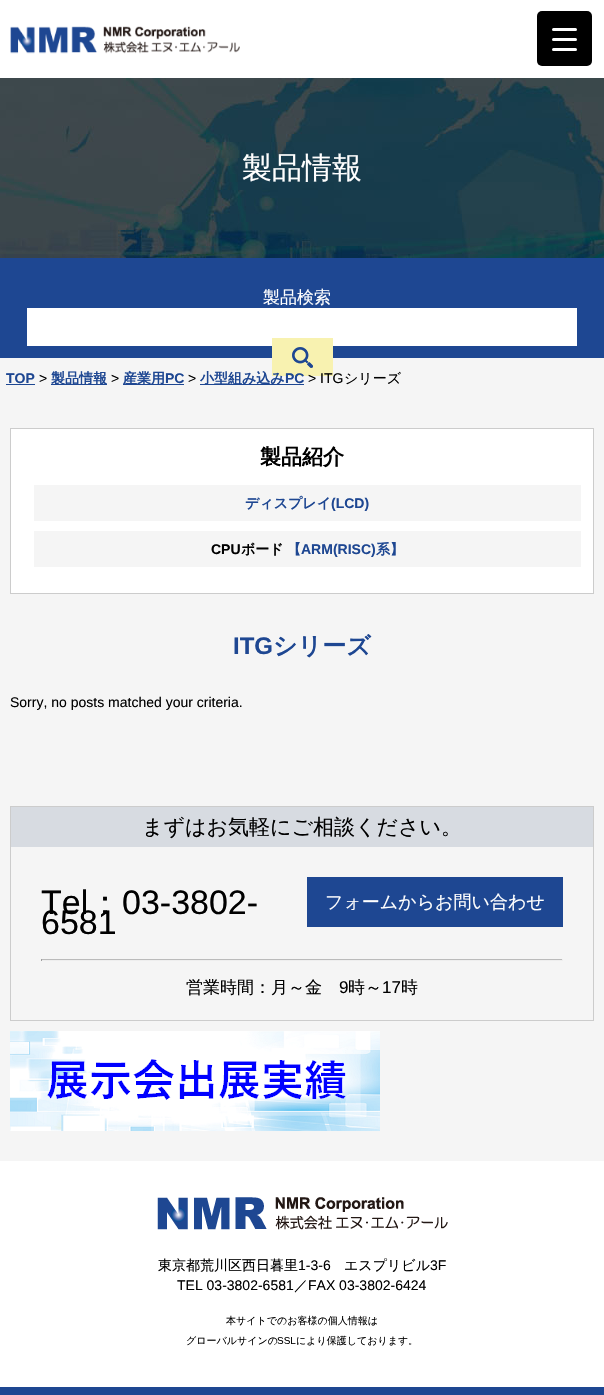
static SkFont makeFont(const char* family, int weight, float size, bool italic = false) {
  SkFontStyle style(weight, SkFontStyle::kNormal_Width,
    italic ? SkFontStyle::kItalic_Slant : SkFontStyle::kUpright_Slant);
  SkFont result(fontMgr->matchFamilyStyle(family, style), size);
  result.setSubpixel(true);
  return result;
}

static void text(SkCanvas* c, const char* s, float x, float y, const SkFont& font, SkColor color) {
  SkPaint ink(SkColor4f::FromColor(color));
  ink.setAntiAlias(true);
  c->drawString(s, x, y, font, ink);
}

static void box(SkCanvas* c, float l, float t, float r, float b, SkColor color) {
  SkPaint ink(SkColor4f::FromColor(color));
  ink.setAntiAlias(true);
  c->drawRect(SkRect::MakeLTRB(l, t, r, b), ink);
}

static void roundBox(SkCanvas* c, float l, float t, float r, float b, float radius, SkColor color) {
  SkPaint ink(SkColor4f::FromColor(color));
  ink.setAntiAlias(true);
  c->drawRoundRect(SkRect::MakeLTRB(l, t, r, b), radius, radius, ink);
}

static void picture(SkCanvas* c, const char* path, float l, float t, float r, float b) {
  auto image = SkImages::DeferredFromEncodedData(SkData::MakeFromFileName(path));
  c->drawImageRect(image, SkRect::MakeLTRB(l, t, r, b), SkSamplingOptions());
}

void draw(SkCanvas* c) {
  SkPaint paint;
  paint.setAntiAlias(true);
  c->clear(0xfff5f5f5);
  box(c, 0, 0, 604, 78, 0xffffffff);
  picture(c, "img_01.png", 10, 26, 240, 54);
  roundBox(c, 537, 11, 592, 66, 5, 0xff000000);
  roundBox(c, 552, 38, 577, 41, 1.5f, 0xffffffff);
  roundBox(c, 552, 28, 577, 31, 1.5f, 0xffffffff);
  roundBox(c, 552, 48, 577, 51, 1.5f, 0xffffffff);
  picture(c, "img_02.png", 0, 78, 604, 258);
  SkFont face1 = makeFont("WenQuanYi Zen Hei", 500, 30);
  text(c, "製品情報", 242, 178, face1, 0xffffffff);
  box(c, 0, 258, 604, 358, 0xff1e4792);
  SkFont face2 = makeFont("WenQuanYi Zen Hei", 500, 17);
  text(c, "製品検索", 263, 303, face2, 0xffffffff);
  box(c, 27, 308, 577, 346, 0xffffffff);
  picture(c, "img_03.png", 272, 338, 333, 376);
  SkFont face3 = makeFont("Liberation Sans", 700, 14);
  text(c, "TOP", 6, 383, face3, 0xff1e4792);
  box(c, 6, 384, 35, 385, 0xff1e4792);
  SkFont face4 = makeFont("Liberation Sans", 400, 14);
  text(c, ">", 39, 383, face4, 0xff000000);
  box(c, 51, 384, 107, 385, 0xff1e4792);
  SkFont face5 = makeFont("WenQuanYi Zen Hei", 700, 14);
  text(c, "製品情報", 51, 383, face5, 0xff1e4792);
  text(c, ">", 111, 383, face4, 0xff000000);
  box(c, 123, 384, 184, 385, 0xff1e4792);
  text(c, "産業用", 123, 383, face5, 0xff1e4792);
  text(c, "PC", 165, 383, face3, 0xff1e4792);
  text(c, ">", 188, 383, face4, 0xff000000);
  box(c, 200, 384, 304, 385, 0xff1e4792);
  text(c, "小型組み込み", 200, 383, face5, 0xff1e4792);
  text(c, "PC", 285, 383, face3, 0xff1e4792);
  text(c, "> ITG", 308, 383, face4, 0xff000000);
  SkFont face6 = makeFont("WenQuanYi Zen Hei", 500, 14);
  text(c, "シリーズ", 344, 383, face6, 0xff000000);
  paint.setColor(0xffffffff);
  c->drawRect(SkRect::MakeLTRB(10.5f, 428.5f, 593.5f, 593.5f), paint);
  paint.setStyle(SkPaint::kStroke_Style);
  paint.setStrokeWidth(1);
  paint.setColor(0xffcccccc);
  c->drawRect(SkRect::MakeLTRB(10.5f, 428.5f, 593.5f, 593.5f), paint);
  SkFont face7 = makeFont("WenQuanYi Zen Hei", 700, 21);
  text(c, "製品紹介", 260, 464, face7, 0xff000000);
  box(c, 34, 485, 581, 521, 0xfff5f5f5);
  text(c, "ディスプレイ", 245, 508, face5, 0xff1e4792);
  text(c, "(LCD)", 331, 508, face3, 0xff1e4792);
  box(c, 34, 531, 581, 567, 0xfff5f5f5);
  text(c, "CPU", 211, 554, face3, 0xff000000);
  text(c, "ボード", 241, 554, face5, 0xff000000);
  text(c, "【", 287, 554, face5, 0xff1e4792);
  text(c, "ARM(RISC)", 301, 554, face3, 0xff1e4792);
  text(c, "系】", 376, 554, face5, 0xff1e4792);
  SkFont face8 = makeFont("Liberation Sans", 700, 24);
  text(c, "ITG", 233, 654, face8, 0xff1e4792);
  SkFont face9 = makeFont("WenQuanYi Zen Hei", 700, 24);
  text(c, "シリーズ", 273, 654, face9, 0xff1e4792);
  text(c, "Sorry, no posts matched your criteria.", 10, 707, face4, 0xff000000);
  c->drawRect(SkRect::MakeLTRB(10.5f, 806.5f, 593.5f, 1020.5f), paint);
  box(c, 11, 807, 593, 847, 0xffd7dbe1);
  SkFont face10 = makeFont("WenQuanYi Zen Hei", 500, 21);
  text(c, "まずはお気軽にご相談ください。", 142, 834, face10, 0xff000000);
  SkFont face11 = makeFont("Liberation Sans", 400, 34);
  text(c, "Tel", 41, 914, face11, 0xff000000);
  SkFont face12 = makeFont("WenQuanYi Zen Hei", 500, 34);
  text(c, "：", 88, 914, face12, 0xff000000);
  text(c, "03-3802-", 122, 914, face11, 0xff000000);
  text(c, "6581", 41, 934, face11, 0xff000000);
  box(c, 307, 877, 563, 927, 0xff1e4792);
  SkFont face13 = makeFont("WenQuanYi Zen Hei", 500, 18);
  text(c, "フォームからお問い合わせ", 325, 908, face13, 0xffffffff);
  box(c, 41, 959, 563, 960, 0xffbbbbbb);
  box(c, 562, 959, 563, 961, 0xffeeeeee);
  box(c, 41, 960, 563, 961, 0xffeeeeee);
  box(c, 41, 959, 42, 961, 0xff9f9f9f);
  text(c, "営業時間：月～金", 186, 993, face2, 0xff000000);
  SkFont face14 = makeFont("Liberation Sans", 400, 17);
  text(c, "9", 339, 993, face14, 0xff000000);
  text(c, "時～", 348, 993, face2, 0xff000000);
  text(c, "17", 382, 993, face14, 0xff000000);
  text(c, "時", 401, 993, face2, 0xff000000);
  picture(c, "img_04.png", 10, 1031, 380, 1131);
  box(c, 0, 1161, 604, 1387, 0xffffffff);
  picture(c, "img_05.png", 157, 1197, 448, 1230);
  text(c, "東京都荒川区西日暮里", 158, 1270, face6, 0xff000000);
  text(c, "1-3-6", 298, 1270, face4, 0xff000000);
  text(c, "エスプリビル", 344, 1270, face6, 0xff000000);
  text(c, "3F", 430, 1270, face4, 0xff000000);
  text(c, "TEL 03-3802-6581", 177, 1290, face4, 0xff000000);
  text(c, "／", 294, 1290, face6, 0xff000000);
  text(c, "FAX 03-3802-6424", 308, 1290, face4, 0xff000000);
  SkFont face15 = makeFont("WenQuanYi Zen Hei", 500, 10);
  text(c, "本サイトでのお客様の個人情報は", 226, 1324, face15, 0xff000000);
  text(c, "グローバルサインの", 186, 1344, face15, 0xff000000);
  SkFont face16 = makeFont("Liberation Sans", 400, 10);
  text(c, "SSL", 277, 1344, face16, 0xff000000);
  text(c, "により保護しております。", 296, 1344, face15, 0xff000000);
  box(c, 0, 1387, 604, 1395, 0xff1e4792);
}
